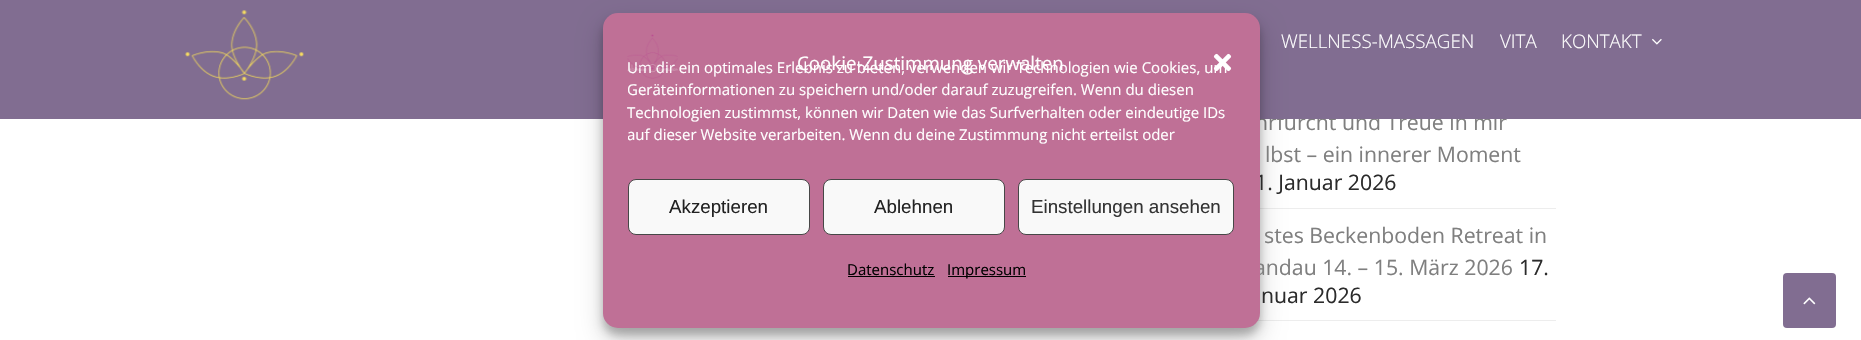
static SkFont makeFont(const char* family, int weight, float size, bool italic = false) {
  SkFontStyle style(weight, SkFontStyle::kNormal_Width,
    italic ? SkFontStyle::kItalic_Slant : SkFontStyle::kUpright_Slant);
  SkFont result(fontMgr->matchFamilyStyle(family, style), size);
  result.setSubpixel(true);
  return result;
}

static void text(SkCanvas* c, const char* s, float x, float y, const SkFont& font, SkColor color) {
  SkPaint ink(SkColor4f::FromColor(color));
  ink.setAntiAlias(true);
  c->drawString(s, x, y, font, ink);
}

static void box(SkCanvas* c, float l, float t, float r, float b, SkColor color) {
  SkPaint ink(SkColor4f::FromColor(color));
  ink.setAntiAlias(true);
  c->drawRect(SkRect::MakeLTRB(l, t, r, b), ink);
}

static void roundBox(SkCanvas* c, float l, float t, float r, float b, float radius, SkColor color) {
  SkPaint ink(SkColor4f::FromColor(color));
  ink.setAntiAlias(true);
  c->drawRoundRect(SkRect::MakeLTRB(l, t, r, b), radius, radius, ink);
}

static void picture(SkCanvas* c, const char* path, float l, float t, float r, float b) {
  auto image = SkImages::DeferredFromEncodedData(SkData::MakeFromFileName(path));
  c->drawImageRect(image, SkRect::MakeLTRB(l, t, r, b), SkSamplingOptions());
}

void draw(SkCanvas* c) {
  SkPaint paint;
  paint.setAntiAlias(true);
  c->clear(0xffffffff);
  SkFont face1 = makeFont("Open Sans", 400, 21.25f);
  text(c, "hrfurcht und Treue in mir", 1255, 130, face1, 0xff7f7f7f);
  box(c, 0, 0, 1861, 119, 0xff816d91);
  box(c, 1260, 208, 1556, 209, 0xffededed);
  box(c, 1257, 320, 1556, 321, 0xffededed);
  paint.setColor(0x3b000000);
  paint.setMaskFilter(SkMaskFilter::MakeBlur(kNormal_SkBlurStyle, 4));
  c->drawRoundRect(SkRect::MakeLTRB(603, 20, 1260, 335), 15, 15, paint);
  paint.setMaskFilter(nullptr);
  paint.setColor(0x30000000);
  paint.setMaskFilter(SkMaskFilter::MakeBlur(kNormal_SkBlurStyle, 12.5f));
  c->drawRoundRect(SkRect::MakeLTRB(603, 25, 1260, 340), 15, 15, paint);
  paint.setMaskFilter(nullptr);
  text(c, "1. Januar 2026", 1255, 190, face1, 0xff2b2b2b);
  text(c, "andau 14. – 15. März 2026", 1254, 275, face1, 0xff7f7f7f);
  roundBox(c, 603, 13, 1260, 328, 15, 0xffbf7096);
  SkFont face2 = makeFont("Open Sans", 400, 18.75f);
  text(c, "Cookie-Zustimmung verwalten", 797, 70, face2, 0xffffffff);
  picture(c, "img_02.png", 1213, 53, 1232, 72);
  SkFont face3 = makeFont("Open Sans", 400, 15);
  text(c, "Um dir ein optimales Erlebnis zu bieten, verwenden wir Technologien wie Cookies, um", 627, 73, face3, 0xffffffff);
  picture(c, "img_01.png", 627, 34, 678, 79);
  c->save();
  c->clipRect(SkRect::MakeLTRB(628, 56, 1235, 154));
  text(c, "Geräteinformationen zu speichern und/oder darauf zuzugreifen. Wenn du diesen", 627, 95, face3, 0xffffffff);
  c->restore();
  text(c, "Technologien zustimmst, können wir Daten wie das Surfverhalten oder eindeutige IDs", 627, 118, face3, 0xffffffff);
  c->save();
  c->clipRect(SkRect::MakeLTRB(628, 56, 1235, 154));
  text(c, "auf dieser Website verarbeiten. Wenn du deine Zustimmung nicht erteilst oder", 627, 140, face3, 0xffffffff);
  c->restore();
  paint.setColor(0xfff9f9f9);
  c->drawRoundRect(SkRect::MakeLTRB(628.5f, 179.5f, 809.5f, 234.5f), 7.5f, 7.5f, paint);
  paint.setStyle(SkPaint::kStroke_Style);
  paint.setStrokeWidth(1);
  paint.setColor(0xff474747);
  c->drawRoundRect(SkRect::MakeLTRB(628.5f, 179.5f, 809.5f, 234.5f), 7.5f, 7.5f, paint);
  SkFont face4 = makeFont("Liberation Sans", 400, 18.75f);
  text(c, "Akzeptieren", 669, 213, face4, 0xff222222);
  paint.setStyle(SkPaint::kFill_Style);
  paint.setColor(0xfff9f9f9);
  c->drawRoundRect(SkRect::MakeLTRB(823.5f, 179.5f, 1004.5f, 234.5f), 7.5f, 7.5f, paint);
  paint.setStyle(SkPaint::kStroke_Style);
  paint.setColor(0xff474747);
  c->drawRoundRect(SkRect::MakeLTRB(823.5f, 179.5f, 1004.5f, 234.5f), 7.5f, 7.5f, paint);
  text(c, "Ablehnen", 874, 213, face4, 0xff222222);
  paint.setStyle(SkPaint::kFill_Style);
  paint.setColor(0xfff9f9f9);
  c->drawRoundRect(SkRect::MakeLTRB(1018.5f, 179.5f, 1233.5f, 234.5f), 7.5f, 7.5f, paint);
  paint.setStyle(SkPaint::kStroke_Style);
  paint.setColor(0xff474747);
  c->drawRoundRect(SkRect::MakeLTRB(1018.5f, 179.5f, 1233.5f, 234.5f), 7.5f, 7.5f, paint);
  text(c, "Einstellungen ansehen", 1031, 213, face4, 0xff333333);
  text(c, "Datenschutz", 847, 275, face3, 0xff000000);
  box(c, 848, 276, 935, 277, 0xff000000);
  box(c, 948, 276, 1026, 277, 0xff000000);
  text(c, "Impressum", 947, 275, face3, 0xff000000);
  picture(c, "img_03.png", 185, 10, 304, 100);
  SkFont face5 = makeFont("Open Sans", 300, 18.75f);
  text(c, "WELLNESS-MASSAGEN", 1281, 48, face5, 0xffffffff);
  text(c, "VITA", 1500, 48, face5, 0xffffffff);
  text(c, "KONTAKT", 1561, 48, face5, 0xffffffff);
  picture(c, "img_04.png", 1652, 38, 1662, 45);
  text(c, "lbst – ein innerer Moment", 1265, 162, face1, 0xff7f7f7f);
  text(c, "stes Beckenboden Retreat in", 1264, 243, face1, 0xff7f7f7f);
  text(c, "17.", 1519, 275, face1, 0xff2b2b2b);
  text(c, "nuar 2026", 1261, 303, face1, 0xff2b2b2b);
  roundBox(c, 1783, 273, 1836, 328, 4, 0xff816d91);
  picture(c, "img_05.png", 1803, 297, 1816, 305);
}
